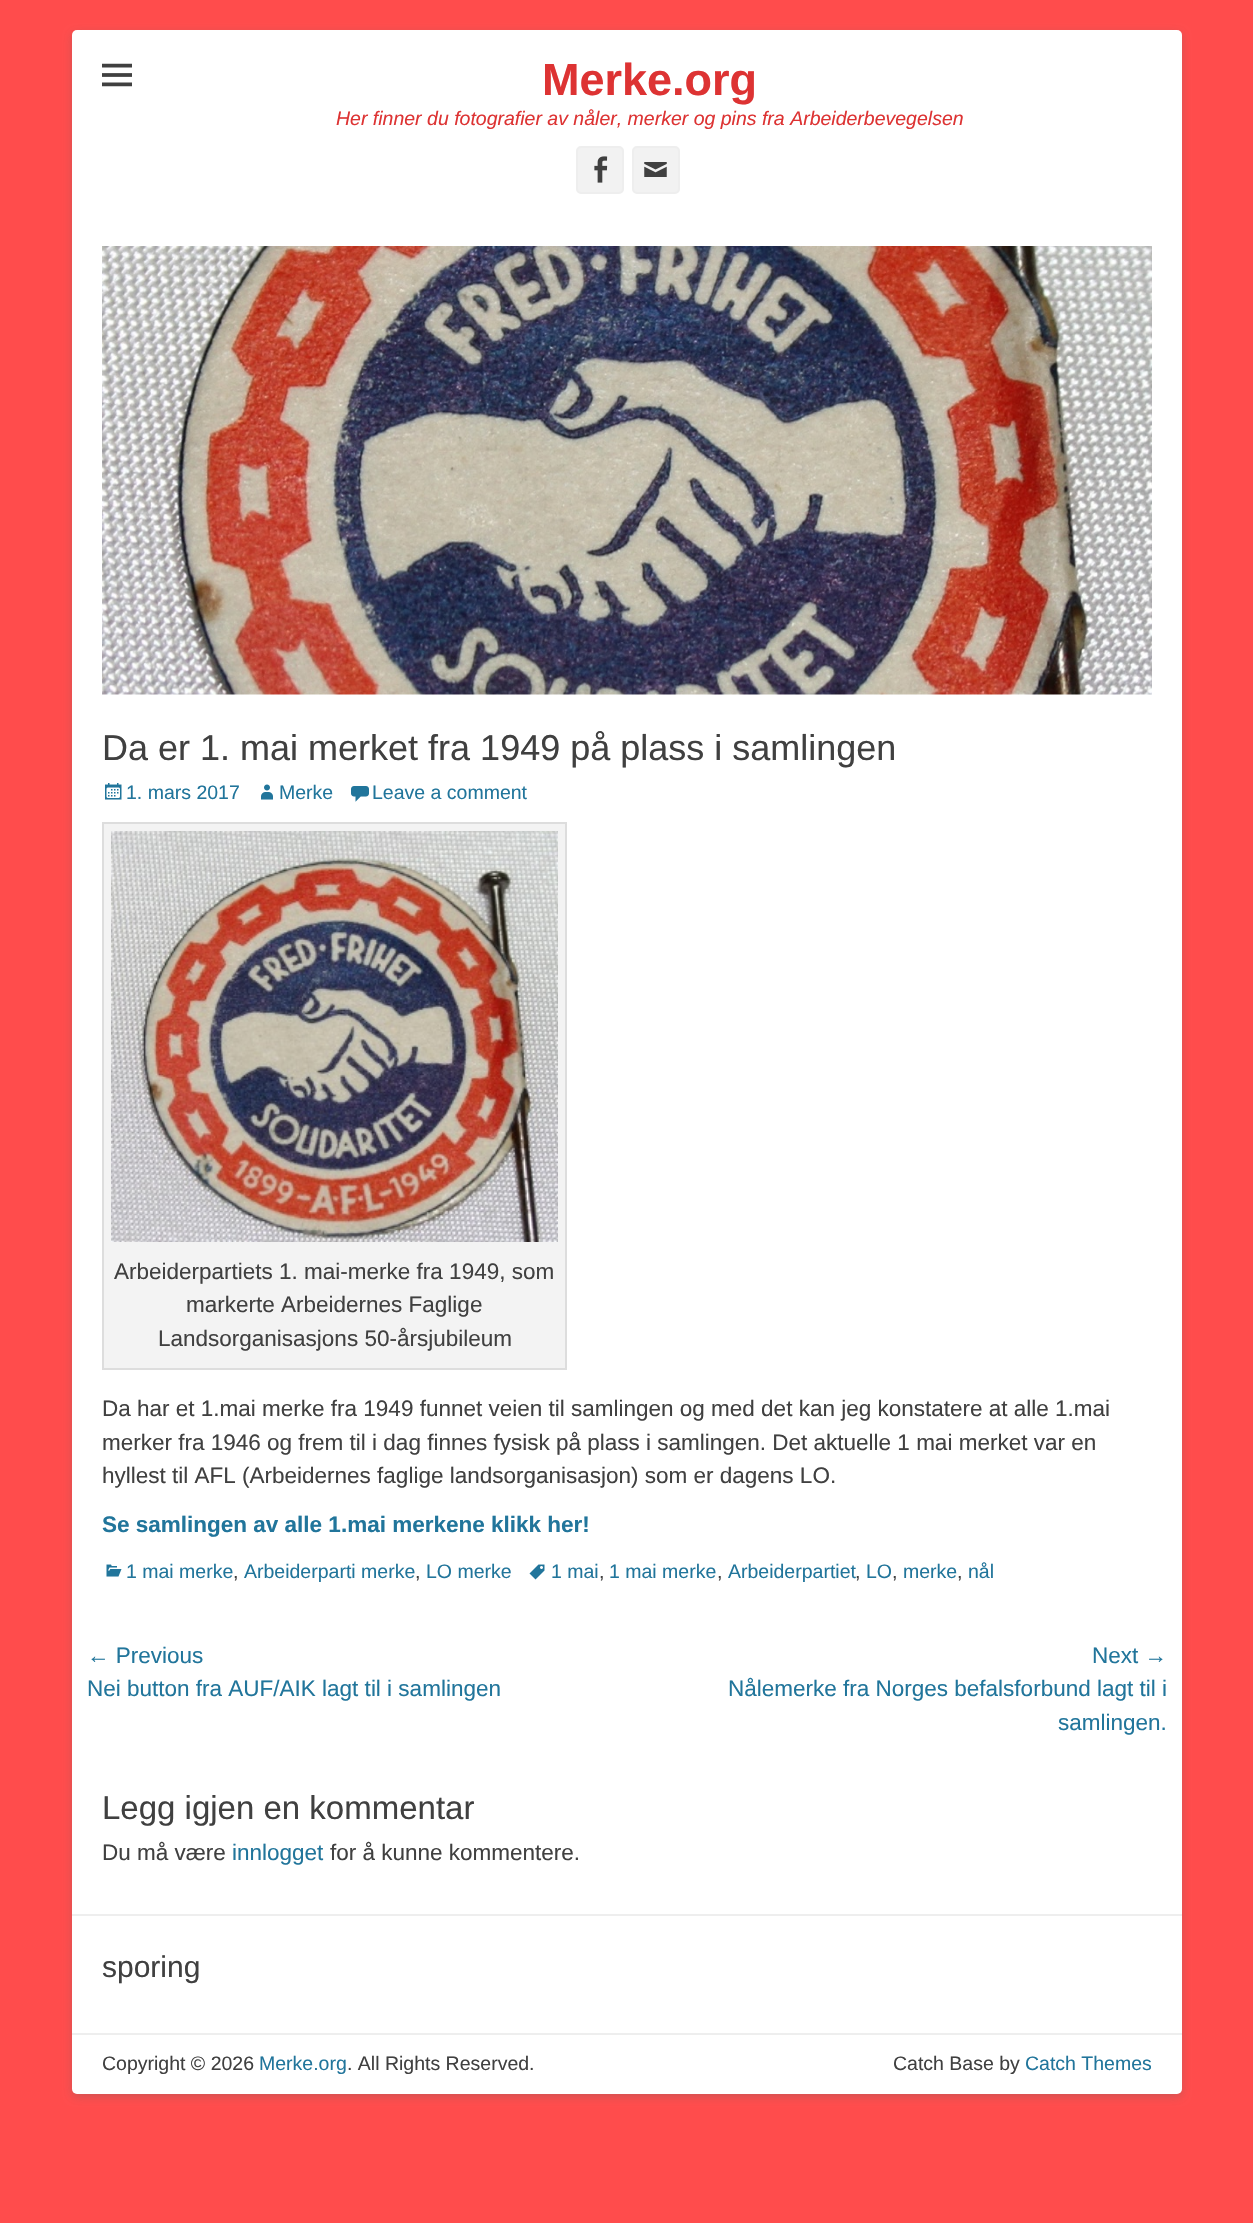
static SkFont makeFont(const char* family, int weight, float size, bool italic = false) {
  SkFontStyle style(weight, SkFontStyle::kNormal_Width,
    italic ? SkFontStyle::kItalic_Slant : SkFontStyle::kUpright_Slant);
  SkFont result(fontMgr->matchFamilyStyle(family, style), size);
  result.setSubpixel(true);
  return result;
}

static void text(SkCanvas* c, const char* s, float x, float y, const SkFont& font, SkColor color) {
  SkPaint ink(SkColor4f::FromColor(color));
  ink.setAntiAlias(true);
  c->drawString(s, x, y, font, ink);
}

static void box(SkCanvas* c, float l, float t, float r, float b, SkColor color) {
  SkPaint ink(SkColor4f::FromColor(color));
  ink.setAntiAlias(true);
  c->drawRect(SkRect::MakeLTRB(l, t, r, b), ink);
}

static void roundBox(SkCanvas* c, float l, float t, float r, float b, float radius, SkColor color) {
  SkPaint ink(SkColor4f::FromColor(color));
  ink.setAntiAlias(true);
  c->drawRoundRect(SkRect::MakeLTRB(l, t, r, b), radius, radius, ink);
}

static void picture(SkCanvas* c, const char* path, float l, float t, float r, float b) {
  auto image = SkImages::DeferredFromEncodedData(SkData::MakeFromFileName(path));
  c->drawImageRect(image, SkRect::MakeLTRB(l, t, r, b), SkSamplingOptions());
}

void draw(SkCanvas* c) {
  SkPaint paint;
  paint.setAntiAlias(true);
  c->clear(0xffff4c4c);
  paint.setColor(0x4d646464);
  paint.setMaskFilter(SkMaskFilter::MakeBlur(kNormal_SkBlurStyle, 4.5f));
  c->drawRoundRect(SkRect::MakeLTRB(72, 33, 1182, 2097), 5, 5, paint);
  paint.setMaskFilter(nullptr);
  roundBox(c, 72, 30, 1182, 2094, 5, 0xffffffff);
  picture(c, "img_01.png", 102, 63, 132, 87);
  SkFont face1 = makeFont("Liberation Sans", 700, 45);
  text(c, "Merke.org", 542, 95, face1, 0xffdd3333);
  SkFont face2 = makeFont("Liberation Sans", 400, 19.5f, true);
  text(c, "Her finner du fotografier av nåler, merker og pins fra Arbeiderbevegelsen", 336, 125, face2, 0xffdd3333);
  paint.setColor(0xfff2f2f2);
  c->drawRoundRect(SkRect::MakeLTRB(577, 147, 623, 193), 4, 4, paint);
  paint.setStyle(SkPaint::kStroke_Style);
  paint.setStrokeWidth(2);
  paint.setColor(0xffeeeeee);
  c->drawRoundRect(SkRect::MakeLTRB(577, 147, 623, 193), 4, 4, paint);
  picture(c, "img_02.png", 594, 156, 608, 183);
  paint.setStyle(SkPaint::kFill_Style);
  paint.setColor(0xfff2f2f2);
  c->drawRoundRect(SkRect::MakeLTRB(633, 147, 679, 193), 4, 4, paint);
  paint.setStyle(SkPaint::kStroke_Style);
  paint.setColor(0xffeeeeee);
  c->drawRoundRect(SkRect::MakeLTRB(633, 147, 679, 193), 4, 4, paint);
  picture(c, "img_03.png", 644, 162, 667, 177);
  picture(c, "img_04.png", 102, 246, 1152, 695);
  SkFont face3 = makeFont("Liberation Sans", 400, 36);
  text(c, "Da er 1. mai merket fra 1949 på plass i samlingen", 102, 760, face3, 0xff404040);
  picture(c, "img_05.png", 105, 783, 122, 800);
  SkFont face4 = makeFont("Liberation Sans", 400, 19.5f);
  text(c, "1. mars 2017", 126, 799, face4, 0xff21759b);
  picture(c, "img_06.png", 261, 784, 273, 800);
  text(c, "Merke", 279, 799, face4, 0xff21759b);
  picture(c, "img_07.png", 351, 786, 369, 802);
  text(c, "Leave a comment", 372, 799, face4, 0xff21759b);
  paint.setStyle(SkPaint::kFill_Style);
  paint.setColor(0xfff3f3f3);
  c->drawRect(SkRect::MakeLTRB(103, 823, 566, 1369), paint);
  paint.setStyle(SkPaint::kStroke_Style);
  paint.setColor(0xffdddddd);
  c->drawRect(SkRect::MakeLTRB(103, 823, 566, 1369), paint);
  picture(c, "img_08.png", 111, 831, 558, 1242);
  SkFont face5 = makeFont("Liberation Sans", 400, 22.5f);
  text(c, "Arbeiderpartiets 1. mai-merke fra 1949, som", 114, 1279, face5, 0xff404040);
  text(c, "markerte Arbeidernes Faglige", 186, 1312, face5, 0xff404040);
  text(c, "Landsorganisasjons 50-årsjubileum", 158, 1346, face5, 0xff404040);
  text(c, "Da har et 1.mai merke fra 1949 funnet veien til samlingen og med det kan jeg konstatere at alle 1.mai", 102, 1416, face5, 0xff404040);
  text(c, "merker fra 1946 og frem til i dag finnes fysisk på plass i samlingen. Det aktuelle 1 mai merket var en", 102, 1450, face5, 0xff404040);
  text(c, "hyllest til AFL (Arbeidernes faglige landsorganisasjon) som er dagens LO.", 102, 1483, face5, 0xff404040);
  SkFont face6 = makeFont("Liberation Sans", 700, 22.5f);
  text(c, "Se samlingen av alle 1.mai merkene klikk her!", 102, 1532, face6, 0xff21759b);
  picture(c, "img_09.png", 106, 1564, 122, 1577);
  text(c, "1 mai merke", 126, 1578, face4, 0xff21759b);
  text(c, ",", 233, 1578, face4, 0xff404040);
  text(c, "Arbeiderparti merke", 244, 1578, face4, 0xff21759b);
  text(c, ",", 415, 1578, face4, 0xff404040);
  text(c, "LO merke", 426, 1578, face4, 0xff21759b);
  picture(c, "img_10.png", 529, 1564, 545, 1580);
  text(c, "1 mai", 551, 1578, face4, 0xff21759b);
  text(c, ",", 599, 1578, face4, 0xff404040);
  text(c, "1 mai merke", 609, 1578, face4, 0xff21759b);
  text(c, ",", 717, 1578, face4, 0xff404040);
  text(c, "Arbeiderpartiet", 728, 1578, face4, 0xff21759b);
  text(c, ",", 855, 1578, face4, 0xff404040);
  text(c, "LO", 866, 1578, face4, 0xff21759b);
  text(c, ",", 892, 1578, face4, 0xff404040);
  text(c, "merke", 903, 1578, face4, 0xff21759b);
  text(c, ",", 957, 1578, face4, 0xff404040);
  text(c, "nål", 968, 1578, face4, 0xff21759b);
  text(c, "← Previous", 87, 1663, face5, 0xff21759b);
  text(c, "Nei button fra AUF/AIK lagt til i samlingen", 87, 1696, face5, 0xff21759b);
  text(c, "Next →", 1092, 1663, face5, 0xff21759b);
  text(c, "Nålemerke fra Norges befalsforbund lagt til i", 728, 1696, face5, 0xff21759b);
  text(c, "samlingen.", 1058, 1730, face5, 0xff21759b);
  SkFont face7 = makeFont("Liberation Sans", 400, 33);
  text(c, "Legg igjen en kommentar", 102, 1819, face7, 0xff404040);
  text(c, "Du må være", 102, 1860, face5, 0xff404040);
  text(c, "innlogget", 232, 1860, face5, 0xff21759b);
  text(c, "for å kunne kommentere.", 330, 1860, face5, 0xff404040);
  box(c, 72, 1914, 1182, 1916, 0xffeeeeee);
  SkFont face8 = makeFont("Liberation Sans", 400, 30);
  text(c, "sporing", 102, 1977, face8, 0xff404040);
  box(c, 72, 2033, 1182, 2035, 0xffeeeeee);
  text(c, "Copyright © 2026", 102, 2070, face4, 0xff404040);
  text(c, "Merke.org", 259, 2070, face4, 0xff21759b);
  text(c, ". All Rights Reserved.", 347, 2070, face4, 0xff404040);
  text(c, "Catch Base by", 893, 2070, face4, 0xff404040);
  text(c, "Catch Themes", 1025, 2070, face4, 0xff21759b);
}
